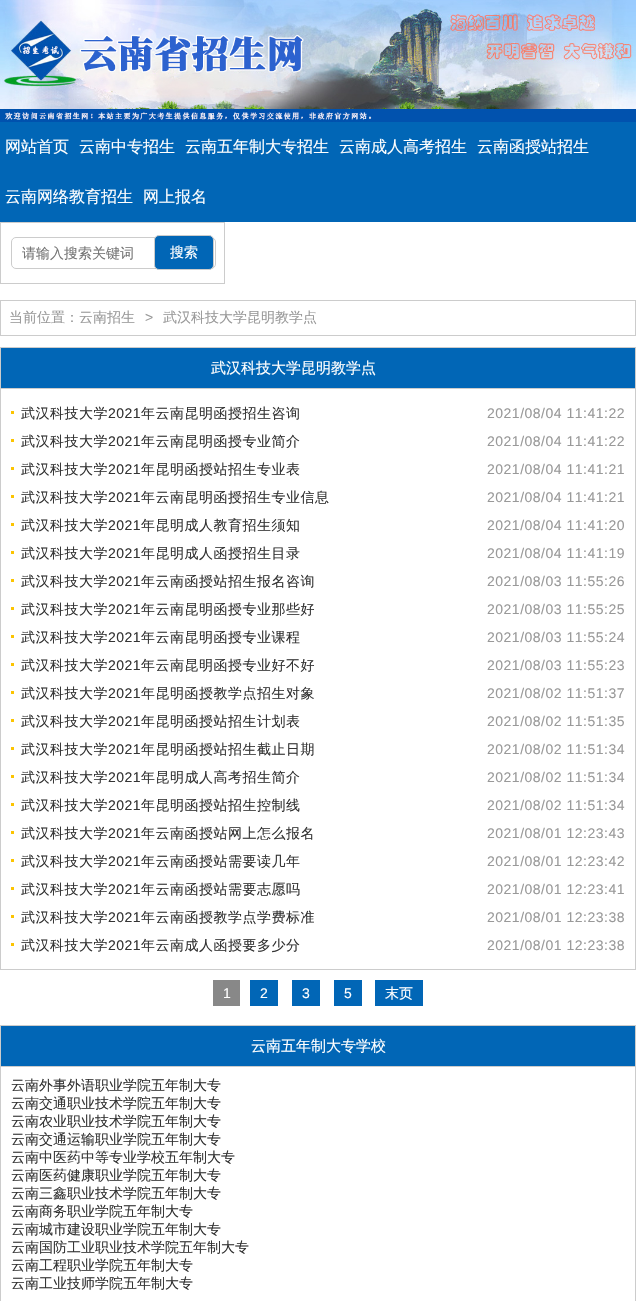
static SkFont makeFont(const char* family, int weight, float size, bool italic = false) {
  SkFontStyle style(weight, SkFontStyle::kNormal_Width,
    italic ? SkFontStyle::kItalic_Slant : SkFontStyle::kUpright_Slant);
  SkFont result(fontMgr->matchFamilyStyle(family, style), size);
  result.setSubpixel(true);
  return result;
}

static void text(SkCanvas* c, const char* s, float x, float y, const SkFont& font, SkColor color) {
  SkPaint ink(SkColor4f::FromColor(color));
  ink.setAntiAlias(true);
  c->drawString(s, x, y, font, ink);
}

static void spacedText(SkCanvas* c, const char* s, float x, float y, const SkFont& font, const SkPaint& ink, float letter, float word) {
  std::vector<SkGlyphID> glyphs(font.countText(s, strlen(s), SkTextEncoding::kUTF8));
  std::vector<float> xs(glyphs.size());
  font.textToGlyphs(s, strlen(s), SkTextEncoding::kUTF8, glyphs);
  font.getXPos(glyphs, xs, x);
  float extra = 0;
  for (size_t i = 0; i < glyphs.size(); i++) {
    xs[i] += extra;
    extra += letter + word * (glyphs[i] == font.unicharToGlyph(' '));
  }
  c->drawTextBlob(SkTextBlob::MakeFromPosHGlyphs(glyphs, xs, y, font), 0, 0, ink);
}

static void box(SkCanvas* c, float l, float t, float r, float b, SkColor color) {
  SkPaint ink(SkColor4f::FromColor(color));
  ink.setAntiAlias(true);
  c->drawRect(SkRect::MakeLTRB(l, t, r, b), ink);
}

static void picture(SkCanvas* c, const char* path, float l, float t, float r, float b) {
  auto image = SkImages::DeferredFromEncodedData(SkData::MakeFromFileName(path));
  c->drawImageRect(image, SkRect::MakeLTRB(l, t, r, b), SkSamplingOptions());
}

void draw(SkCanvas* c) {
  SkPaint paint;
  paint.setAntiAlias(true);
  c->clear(0xffffffff);
  picture(c, "img_01.png", 0, 0, 636, 122);
  box(c, 0, 122, 636, 222, 0xff0166b6);
  SkFont face1 = makeFont("WenQuanYi Zen Hei", 500, 16);
  text(c, "网站首页", 5, 152, face1, 0xffffffff);
  text(c, "云南中专招生", 79, 152, face1, 0xffffffff);
  text(c, "云南五年制大专招生", 185, 152, face1, 0xffffffff);
  text(c, "云南成人高考招生", 339, 152, face1, 0xffffffff);
  text(c, "云南函授站招生", 477, 152, face1, 0xffffffff);
  text(c, "云南网络教育招生", 5, 202, face1, 0xffffffff);
  text(c, "网上报名", 143, 202, face1, 0xffffffff);
  paint.setStyle(SkPaint::kStroke_Style);
  paint.setStrokeWidth(1);
  paint.setColor(0xffcccccc);
  c->drawRect(SkRect::MakeLTRB(0.5f, 222.5f, 224.5f, 283.5f), paint);
  c->drawRoundRect(SkRect::MakeLTRB(11.5f, 237.5f, 215.5f, 268.5f), 4.5f, 4.5f, paint);
  SkFont face2 = makeFont("WenQuanYi Zen Hei", 500, 14);
  text(c, "请输入搜索关键词", 22, 258, face2, 0xff757575);
  paint.setStyle(SkPaint::kFill_Style);
  paint.setColor(0xff0166b6);
  c->drawRoundRect(SkRect::MakeLTRB(154.5f, 235.5f, 213.5f, 269.5f), 4.5f, 4.5f, paint);
  paint.setStyle(SkPaint::kStroke_Style);
  paint.setColor(0xffcccccc);
  c->drawRoundRect(SkRect::MakeLTRB(154.5f, 235.5f, 213.5f, 269.5f), 4.5f, 4.5f, paint);
  text(c, "搜索", 170, 257, face2, 0xffffffff);
  c->drawRect(SkRect::MakeLTRB(0.5f, 300.5f, 635.5f, 335.5f), paint);
  text(c, "当前位置：云南招生", 9, 322, face2, 0xff999999);
  SkFont face3 = makeFont("Liberation Sans", 400, 14);
  text(c, ">", 145, 322, face3, 0xff999999);
  text(c, "武汉科技大学昆明教学点", 163, 322, face2, 0xff999999);
  c->drawRect(SkRect::MakeLTRB(0.5f, 347.5f, 635.5f, 969.5f), paint);
  box(c, 1, 388, 635, 389, 0xffcccccc);
  box(c, 1, 348, 635, 388, 0xff0166b6);
  SkFont face4 = makeFont("WenQuanYi Zen Hei", 500, 15);
  text(c, "武汉科技大学昆明教学点", 211, 373, face4, 0xffffffff);
  box(c, 11, 411, 14, 414, 0xfffcc400);
  paint.setStyle(SkPaint::kFill_Style);
  paint.setColor(0xff333333);
  spacedText(c, "武汉科技大学", 21, 418, face2, paint, 0.5f, 0);
  spacedText(c, "2021", 108, 418, face3, paint, 0.5f, 0);
  spacedText(c, "年云南昆明函授招生咨询", 141, 418, face2, paint, 0.5f, 0);
  paint.setColor(0xff999999);
  spacedText(c, "2021/08/04 11:41:22", 487, 418, face3, paint, 0.5f, 0);
  box(c, 11, 439, 14, 442, 0xfffcc400);
  paint.setColor(0xff333333);
  spacedText(c, "武汉科技大学", 21, 446, face2, paint, 0.5f, 0);
  spacedText(c, "2021", 108, 446, face3, paint, 0.5f, 0);
  spacedText(c, "年云南昆明函授专业简介", 141, 446, face2, paint, 0.5f, 0);
  paint.setColor(0xff999999);
  spacedText(c, "2021/08/04 11:41:22", 487, 446, face3, paint, 0.5f, 0);
  box(c, 11, 467, 14, 470, 0xfffcc400);
  paint.setColor(0xff333333);
  spacedText(c, "武汉科技大学", 21, 474, face2, paint, 0.5f, 0);
  spacedText(c, "2021", 108, 474, face3, paint, 0.5f, 0);
  spacedText(c, "年昆明函授站招生专业表", 141, 474, face2, paint, 0.5f, 0);
  paint.setColor(0xff999999);
  spacedText(c, "2021/08/04 11:41:21", 487, 474, face3, paint, 0.5f, 0);
  box(c, 11, 495, 14, 498, 0xfffcc400);
  paint.setColor(0xff333333);
  spacedText(c, "武汉科技大学", 21, 502, face2, paint, 0.5f, 0);
  spacedText(c, "2021", 108, 502, face3, paint, 0.5f, 0);
  spacedText(c, "年云南昆明函授招生专业信息", 141, 502, face2, paint, 0.5f, 0);
  paint.setColor(0xff999999);
  spacedText(c, "2021/08/04 11:41:21", 487, 502, face3, paint, 0.5f, 0);
  box(c, 11, 523, 14, 526, 0xfffcc400);
  paint.setColor(0xff333333);
  spacedText(c, "武汉科技大学", 21, 530, face2, paint, 0.5f, 0);
  spacedText(c, "2021", 108, 530, face3, paint, 0.5f, 0);
  spacedText(c, "年昆明成人教育招生须知", 141, 530, face2, paint, 0.5f, 0);
  paint.setColor(0xff999999);
  spacedText(c, "2021/08/04 11:41:20", 487, 530, face3, paint, 0.5f, 0);
  box(c, 11, 551, 14, 554, 0xfffcc400);
  paint.setColor(0xff333333);
  spacedText(c, "武汉科技大学", 21, 558, face2, paint, 0.5f, 0);
  spacedText(c, "2021", 108, 558, face3, paint, 0.5f, 0);
  spacedText(c, "年昆明成人函授招生目录", 141, 558, face2, paint, 0.5f, 0);
  paint.setColor(0xff999999);
  spacedText(c, "2021/08/04 11:41:19", 487, 558, face3, paint, 0.5f, 0);
  box(c, 11, 579, 14, 582, 0xfffcc400);
  paint.setColor(0xff333333);
  spacedText(c, "武汉科技大学", 21, 586, face2, paint, 0.5f, 0);
  spacedText(c, "2021", 108, 586, face3, paint, 0.5f, 0);
  spacedText(c, "年云南函授站招生报名咨询", 141, 586, face2, paint, 0.5f, 0);
  paint.setColor(0xff999999);
  spacedText(c, "2021/08/03 11:55:26", 487, 586, face3, paint, 0.5f, 0);
  box(c, 11, 607, 14, 610, 0xfffcc400);
  paint.setColor(0xff333333);
  spacedText(c, "武汉科技大学", 21, 614, face2, paint, 0.5f, 0);
  spacedText(c, "2021", 108, 614, face3, paint, 0.5f, 0);
  spacedText(c, "年云南昆明函授专业那些好", 141, 614, face2, paint, 0.5f, 0);
  paint.setColor(0xff999999);
  spacedText(c, "2021/08/03 11:55:25", 487, 614, face3, paint, 0.5f, 0);
  box(c, 11, 635, 14, 638, 0xfffcc400);
  paint.setColor(0xff333333);
  spacedText(c, "武汉科技大学", 21, 642, face2, paint, 0.5f, 0);
  spacedText(c, "2021", 108, 642, face3, paint, 0.5f, 0);
  spacedText(c, "年云南昆明函授专业课程", 141, 642, face2, paint, 0.5f, 0);
  paint.setColor(0xff999999);
  spacedText(c, "2021/08/03 11:55:24", 487, 642, face3, paint, 0.5f, 0);
  box(c, 11, 663, 14, 666, 0xfffcc400);
  paint.setColor(0xff333333);
  spacedText(c, "武汉科技大学", 21, 670, face2, paint, 0.5f, 0);
  spacedText(c, "2021", 108, 670, face3, paint, 0.5f, 0);
  spacedText(c, "年云南昆明函授专业好不好", 141, 670, face2, paint, 0.5f, 0);
  paint.setColor(0xff999999);
  spacedText(c, "2021/08/03 11:55:23", 487, 670, face3, paint, 0.5f, 0);
  box(c, 11, 691, 14, 694, 0xfffcc400);
  paint.setColor(0xff333333);
  spacedText(c, "武汉科技大学", 21, 698, face2, paint, 0.5f, 0);
  spacedText(c, "2021", 108, 698, face3, paint, 0.5f, 0);
  spacedText(c, "年昆明函授教学点招生对象", 141, 698, face2, paint, 0.5f, 0);
  paint.setColor(0xff999999);
  spacedText(c, "2021/08/02 11:51:37", 487, 698, face3, paint, 0.5f, 0);
  box(c, 11, 719, 14, 722, 0xfffcc400);
  paint.setColor(0xff333333);
  spacedText(c, "武汉科技大学", 21, 726, face2, paint, 0.5f, 0);
  spacedText(c, "2021", 108, 726, face3, paint, 0.5f, 0);
  spacedText(c, "年昆明函授站招生计划表", 141, 726, face2, paint, 0.5f, 0);
  paint.setColor(0xff999999);
  spacedText(c, "2021/08/02 11:51:35", 487, 726, face3, paint, 0.5f, 0);
  box(c, 11, 747, 14, 750, 0xfffcc400);
  paint.setColor(0xff333333);
  spacedText(c, "武汉科技大学", 21, 754, face2, paint, 0.5f, 0);
  spacedText(c, "2021", 108, 754, face3, paint, 0.5f, 0);
  spacedText(c, "年昆明函授站招生截止日期", 141, 754, face2, paint, 0.5f, 0);
  paint.setColor(0xff999999);
  spacedText(c, "2021/08/02 11:51:34", 487, 754, face3, paint, 0.5f, 0);
  box(c, 11, 775, 14, 778, 0xfffcc400);
  paint.setColor(0xff333333);
  spacedText(c, "武汉科技大学", 21, 782, face2, paint, 0.5f, 0);
  spacedText(c, "2021", 108, 782, face3, paint, 0.5f, 0);
  spacedText(c, "年昆明成人高考招生简介", 141, 782, face2, paint, 0.5f, 0);
  paint.setColor(0xff999999);
  spacedText(c, "2021/08/02 11:51:34", 487, 782, face3, paint, 0.5f, 0);
  box(c, 11, 803, 14, 806, 0xfffcc400);
  paint.setColor(0xff333333);
  spacedText(c, "武汉科技大学", 21, 810, face2, paint, 0.5f, 0);
  spacedText(c, "2021", 108, 810, face3, paint, 0.5f, 0);
  spacedText(c, "年昆明函授站招生控制线", 141, 810, face2, paint, 0.5f, 0);
  paint.setColor(0xff999999);
  spacedText(c, "2021/08/02 11:51:34", 487, 810, face3, paint, 0.5f, 0);
  box(c, 11, 831, 14, 834, 0xfffcc400);
  paint.setColor(0xff333333);
  spacedText(c, "武汉科技大学", 21, 838, face2, paint, 0.5f, 0);
  spacedText(c, "2021", 108, 838, face3, paint, 0.5f, 0);
  spacedText(c, "年云南函授站网上怎么报名", 141, 838, face2, paint, 0.5f, 0);
  paint.setColor(0xff999999);
  spacedText(c, "2021/08/01 12:23:43", 487, 838, face3, paint, 0.5f, 0);
  box(c, 11, 859, 14, 862, 0xfffcc400);
  paint.setColor(0xff333333);
  spacedText(c, "武汉科技大学", 21, 866, face2, paint, 0.5f, 0);
  spacedText(c, "2021", 108, 866, face3, paint, 0.5f, 0);
  spacedText(c, "年云南函授站需要读几年", 141, 866, face2, paint, 0.5f, 0);
  paint.setColor(0xff999999);
  spacedText(c, "2021/08/01 12:23:42", 487, 866, face3, paint, 0.5f, 0);
  box(c, 11, 887, 14, 890, 0xfffcc400);
  paint.setColor(0xff333333);
  spacedText(c, "武汉科技大学", 21, 894, face2, paint, 0.5f, 0);
  spacedText(c, "2021", 108, 894, face3, paint, 0.5f, 0);
  spacedText(c, "年云南函授站需要志愿吗", 141, 894, face2, paint, 0.5f, 0);
  paint.setColor(0xff999999);
  spacedText(c, "2021/08/01 12:23:41", 487, 894, face3, paint, 0.5f, 0);
  box(c, 11, 915, 14, 918, 0xfffcc400);
  paint.setColor(0xff333333);
  spacedText(c, "武汉科技大学", 21, 922, face2, paint, 0.5f, 0);
  spacedText(c, "2021", 108, 922, face3, paint, 0.5f, 0);
  spacedText(c, "年云南函授教学点学费标准", 141, 922, face2, paint, 0.5f, 0);
  paint.setColor(0xff999999);
  spacedText(c, "2021/08/01 12:23:38", 487, 922, face3, paint, 0.5f, 0);
  box(c, 11, 943, 14, 946, 0xfffcc400);
  paint.setColor(0xff333333);
  spacedText(c, "武汉科技大学", 21, 950, face2, paint, 0.5f, 0);
  spacedText(c, "2021", 108, 950, face3, paint, 0.5f, 0);
  spacedText(c, "年云南成人函授要多少分", 141, 950, face2, paint, 0.5f, 0);
  paint.setColor(0xff999999);
  spacedText(c, "2021/08/01 12:23:38", 487, 950, face3, paint, 0.5f, 0);
  box(c, 213, 980, 240, 1006, 0xff888888);
  text(c, "1", 223, 998, face3, 0xffffffff);
  box(c, 250, 980, 278, 1006, 0xff0166b6);
  text(c, "2", 260, 998, face3, 0xffffffff);
  box(c, 292, 980, 320, 1006, 0xff0166b6);
  text(c, "3", 302, 998, face3, 0xffffffff);
  box(c, 334, 980, 362, 1006, 0xff0166b6);
  text(c, "5", 344, 998, face3, 0xffffffff);
  box(c, 375, 980, 423, 1006, 0xff0166b6);
  text(c, "末页", 385, 998, face2, 0xffffffff);
  paint.setStyle(SkPaint::kStroke_Style);
  paint.setColor(0xffcccccc);
  c->drawRect(SkRect::MakeLTRB(0.5f, 1025.5f, 635.5f, 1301.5f), paint);
  box(c, 1, 1026, 635, 1066, 0xff0166b6);
  text(c, "云南五年制大专学校", 251, 1051, face4, 0xffffffff);
  box(c, 1, 1066, 635, 1067, 0xffcccccc);
  text(c, "云南外事外语职业学院五年制大专", 11, 1090, face2, 0xff333333);
  text(c, "云南交通职业技术学院五年制大专", 11, 1108, face2, 0xff333333);
  text(c, "云南农业职业技术学院五年制大专", 11, 1126, face2, 0xff333333);
  text(c, "云南交通运输职业学院五年制大专", 11, 1144, face2, 0xff333333);
  text(c, "云南中医药中等专业学校五年制大专", 11, 1162, face2, 0xff333333);
  text(c, "云南医药健康职业学院五年制大专", 11, 1180, face2, 0xff333333);
  text(c, "云南三鑫职业技术学院五年制大专", 11, 1198, face2, 0xff333333);
  text(c, "云南商务职业学院五年制大专", 11, 1216, face2, 0xff333333);
  text(c, "云南城市建设职业学院五年制大专", 11, 1234, face2, 0xff333333);
  text(c, "云南国防工业职业技术学院五年制大专", 11, 1252, face2, 0xff333333);
  text(c, "云南工程职业学院五年制大专", 11, 1270, face2, 0xff333333);
  text(c, "云南工业技师学院五年制大专", 11, 1288, face2, 0xff333333);
}
